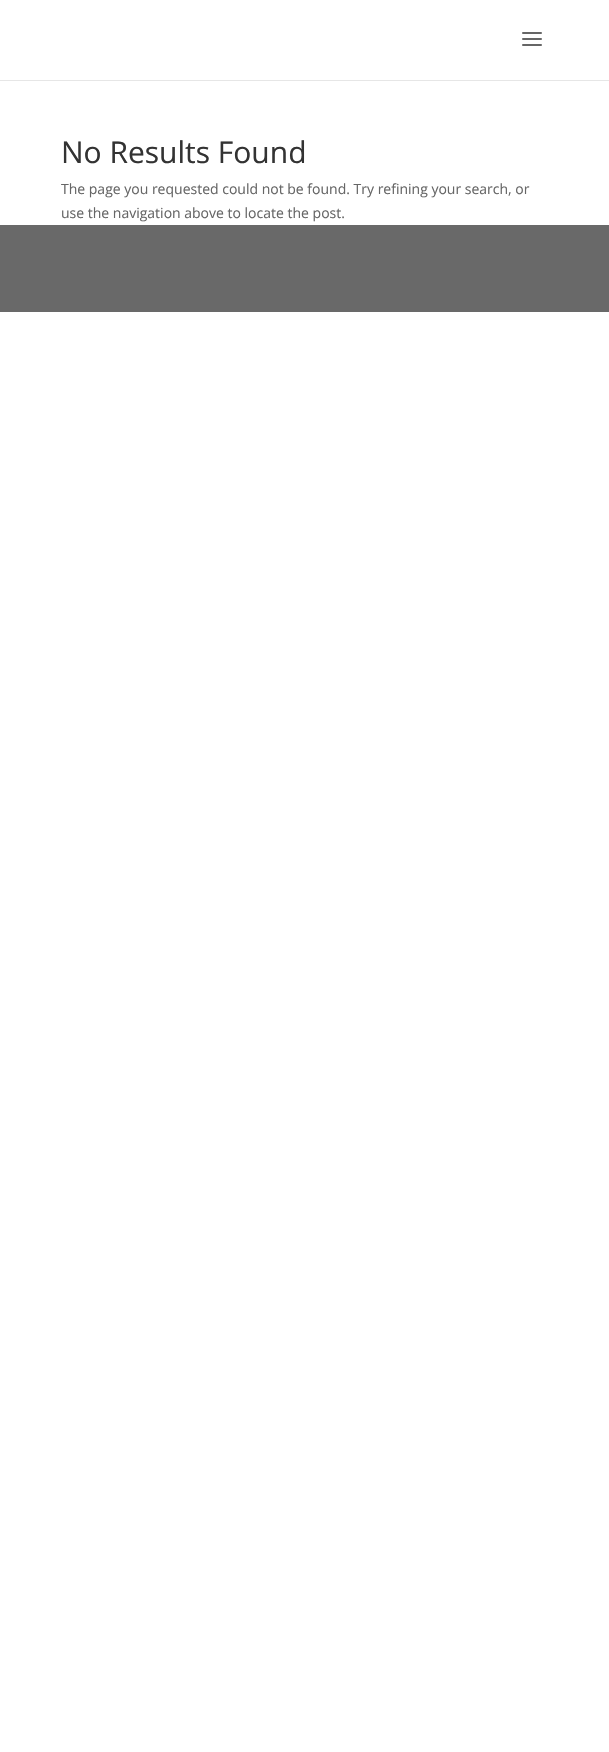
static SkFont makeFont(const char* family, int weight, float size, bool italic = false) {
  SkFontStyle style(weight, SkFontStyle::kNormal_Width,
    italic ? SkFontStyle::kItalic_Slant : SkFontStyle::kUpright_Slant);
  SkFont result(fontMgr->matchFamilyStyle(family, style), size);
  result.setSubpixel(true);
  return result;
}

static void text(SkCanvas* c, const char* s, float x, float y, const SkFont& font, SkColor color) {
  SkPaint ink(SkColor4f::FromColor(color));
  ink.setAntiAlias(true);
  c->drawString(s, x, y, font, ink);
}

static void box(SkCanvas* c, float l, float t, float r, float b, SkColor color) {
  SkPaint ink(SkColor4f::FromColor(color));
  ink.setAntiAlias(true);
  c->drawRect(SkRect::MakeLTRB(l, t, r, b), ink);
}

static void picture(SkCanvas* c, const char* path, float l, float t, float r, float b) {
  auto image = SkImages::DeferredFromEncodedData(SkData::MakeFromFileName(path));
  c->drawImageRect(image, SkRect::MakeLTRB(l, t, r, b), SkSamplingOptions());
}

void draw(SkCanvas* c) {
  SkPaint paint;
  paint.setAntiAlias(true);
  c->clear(0xffffffff);
  box(c, 0, 80, 609, 81, 0xffe6e6e6);
  picture(c, "img_01.png", 522, 32, 542, 46);
  SkFont face1 = makeFont("Open Sans", 400, 30);
  text(c, "No Results Found", 61, 163, face1, 0xff333333);
  SkFont face2 = makeFont("Open Sans", 400, 14);
  text(c, "The page you requested could not be found. Try refining your search, or", 61, 194, face2, 0xff666666);
  text(c, "use the navigation above to locate the post.", 61, 218, face2, 0xff666666);
  box(c, 0, 225, 609, 312, 0xff696969);
}
